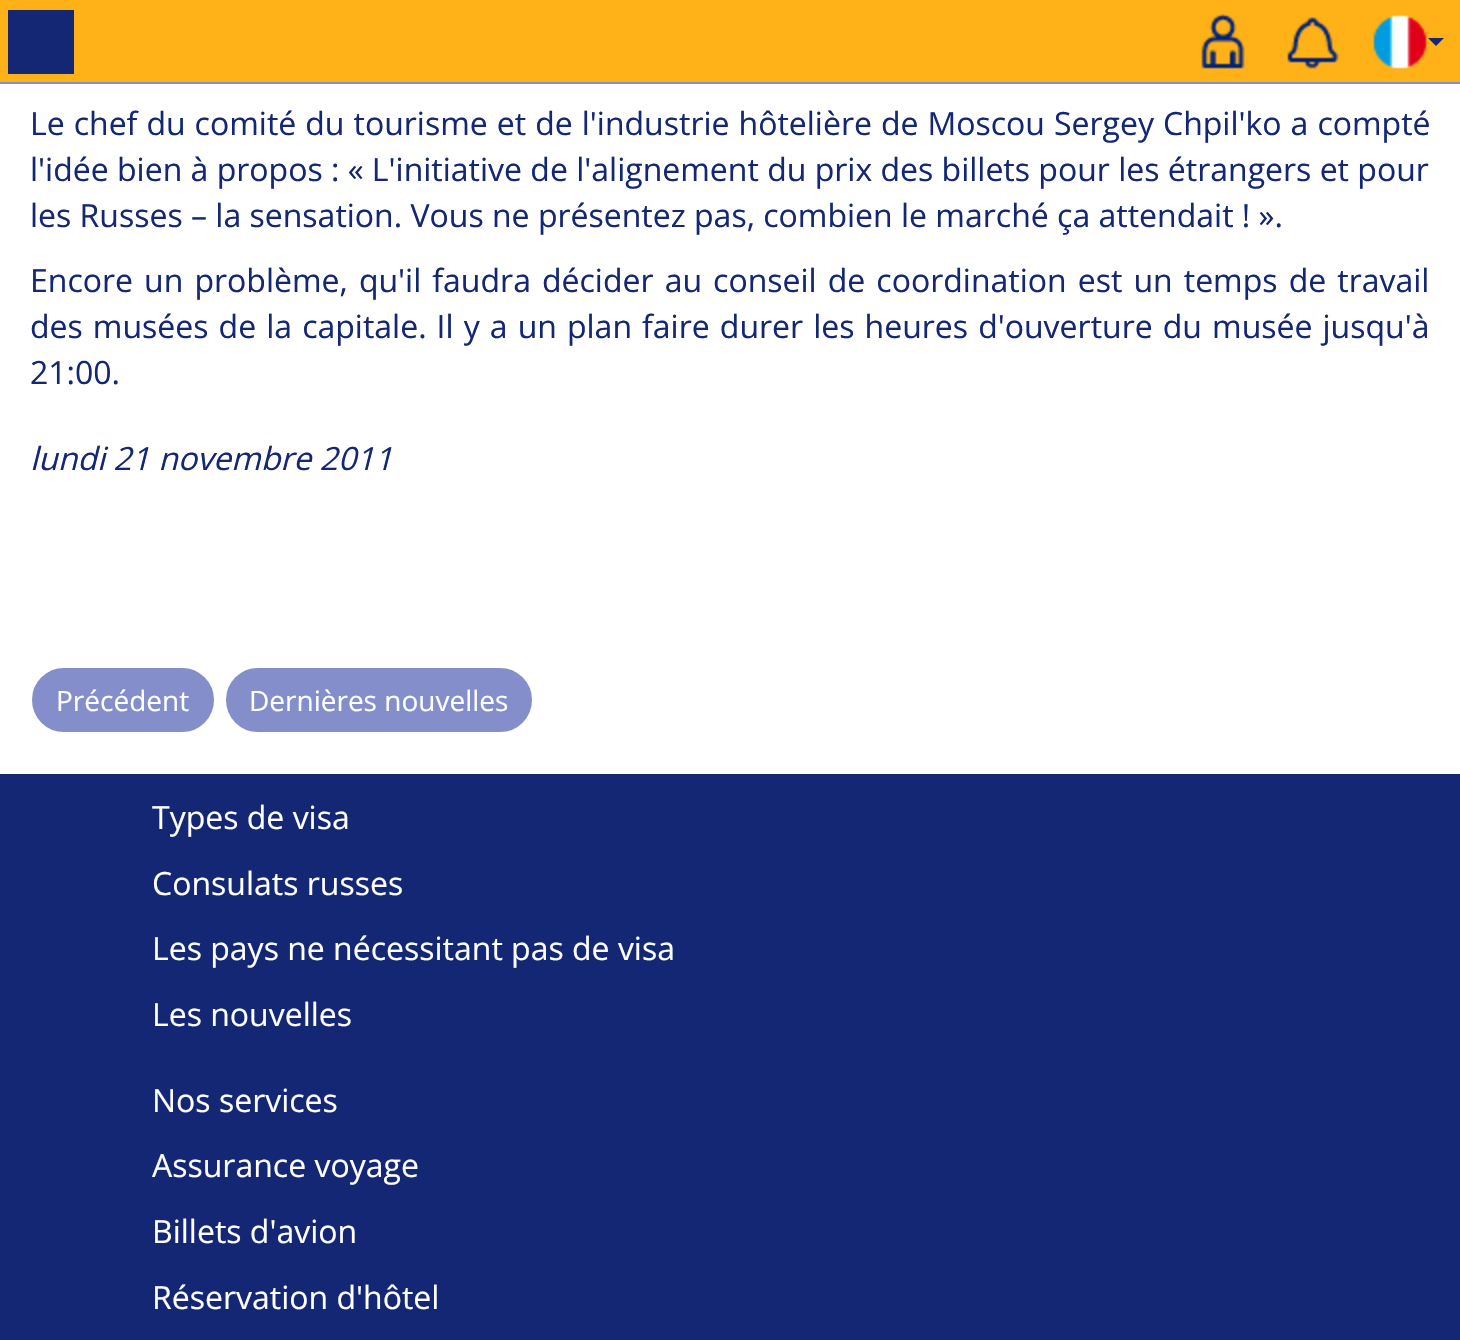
static SkFont makeFont(const char* family, int weight, float size, bool italic = false) {
  SkFontStyle style(weight, SkFontStyle::kNormal_Width,
    italic ? SkFontStyle::kItalic_Slant : SkFontStyle::kUpright_Slant);
  SkFont result(fontMgr->matchFamilyStyle(family, style), size);
  result.setSubpixel(true);
  return result;
}

static void text(SkCanvas* c, const char* s, float x, float y, const SkFont& font, SkColor color) {
  SkPaint ink(SkColor4f::FromColor(color));
  ink.setAntiAlias(true);
  c->drawString(s, x, y, font, ink);
}

static void spacedText(SkCanvas* c, const char* s, float x, float y, const SkFont& font, const SkPaint& ink, float letter, float word) {
  std::vector<SkGlyphID> glyphs(font.countText(s, strlen(s), SkTextEncoding::kUTF8));
  std::vector<float> xs(glyphs.size());
  font.textToGlyphs(s, strlen(s), SkTextEncoding::kUTF8, glyphs);
  font.getXPos(glyphs, xs, x);
  float extra = 0;
  for (size_t i = 0; i < glyphs.size(); i++) {
    xs[i] += extra;
    extra += letter + word * (glyphs[i] == font.unicharToGlyph(' '));
  }
  c->drawTextBlob(SkTextBlob::MakeFromPosHGlyphs(glyphs, xs, y, font), 0, 0, ink);
}

static void box(SkCanvas* c, float l, float t, float r, float b, SkColor color) {
  SkPaint ink(SkColor4f::FromColor(color));
  ink.setAntiAlias(true);
  c->drawRect(SkRect::MakeLTRB(l, t, r, b), ink);
}

static void picture(SkCanvas* c, const char* path, float l, float t, float r, float b) {
  auto image = SkImages::DeferredFromEncodedData(SkData::MakeFromFileName(path));
  c->drawImageRect(image, SkRect::MakeLTRB(l, t, r, b), SkSamplingOptions());
}

void draw(SkCanvas* c) {
  SkPaint paint;
  paint.setAntiAlias(true);
  c->clear(0xffffffff);
  box(c, 0, 0, 1460, 82, 0xffffb118);
  box(c, 0, 82, 1460, 84, 0xff848eca);
  box(c, 8, 10, 74, 74, 0xff142775);
  picture(c, "img_01.png", 1201, 14, 1245, 69);
  picture(c, "img_02.png", 1287, 17, 1339, 69);
  picture(c, "img_03.png", 1373, 15, 1427, 69);
  paint.setColor(0xff142774);
  c->drawPath(SkPathBuilder().moveTo(1428, 38).lineTo(1444, 38).lineTo(1436, 46).close().detach(), paint);
  SkFont face1 = makeFont("Open Sans", 400, 32);
  spacedText(c, "Le chef du comité du tourisme et de l'industrie hôtelière de Moscou Sergey Chpil'ko a compté", 30, 135, face1, paint, 0, 0.7f);
  text(c, "l'idée bien à propos : « L'initiative de l'alignement du prix des billets pour les étrangers et pour", 30, 181, face1, 0xff142774);
  text(c, "les Russes – la sensation. Vous ne présentez pas, combien le marché ça attendait ! ».", 30, 227, face1, 0xff142774);
  spacedText(c, "Encore un problème, qu'il faudra décider au conseil de coordination est un temps de travail", 30, 292, face1, paint, 0, 2.75f);
  spacedText(c, "des musées de la capitale. Il y a un plan faire durer les heures d'ouverture du musée jusqu'à", 30, 338, face1, paint, 0, 1.75f);
  text(c, "21:00.", 30, 384, face1, 0xff142774);
  SkFont face2 = makeFont("Open Sans", 400, 32, true);
  text(c, "lundi 21 novembre 2011", 30, 470, face2, 0xff142774);
  paint.setColor(0xff848ecb);
  c->drawRoundRect(SkRect::MakeLTRB(31, 667, 215, 733), 33, 33, paint);
  paint.setStyle(SkPaint::kStroke_Style);
  paint.setStrokeWidth(2);
  paint.setColor(0xffffffff);
  c->drawRoundRect(SkRect::MakeLTRB(31, 667, 215, 733), 33, 33, paint);
  SkFont face3 = makeFont("Open Sans", 400, 28);
  text(c, "Précédent", 56, 711, face3, 0xffffffff);
  paint.setStyle(SkPaint::kFill_Style);
  paint.setColor(0xff848ecb);
  c->drawRoundRect(SkRect::MakeLTRB(225, 667, 533, 733), 33, 33, paint);
  paint.setStyle(SkPaint::kStroke_Style);
  paint.setColor(0xffffffff);
  c->drawRoundRect(SkRect::MakeLTRB(225, 667, 533, 733), 33, 33, paint);
  text(c, "Dernières nouvelles", 249, 711, face3, 0xffffffff);
  box(c, 0, 774, 1460, 1340, 0xff142774);
  text(c, "Types de visa", 152, 829, face1, 0xffffffff);
  text(c, "Consulats russes", 152, 895, face1, 0xffffffff);
  text(c, "Les pays ne nécessitant pas de visa", 152, 960, face1, 0xffffffff);
  text(c, "Les nouvelles", 152, 1026, face1, 0xffffffff);
  text(c, "Nos services", 152, 1112, face1, 0xffffffff);
  text(c, "Assurance voyage", 152, 1177, face1, 0xffffffff);
  text(c, "Billets d'avion", 152, 1243, face1, 0xffffffff);
  text(c, "Réservation d'hôtel", 152, 1309, face1, 0xffffffff);
}
